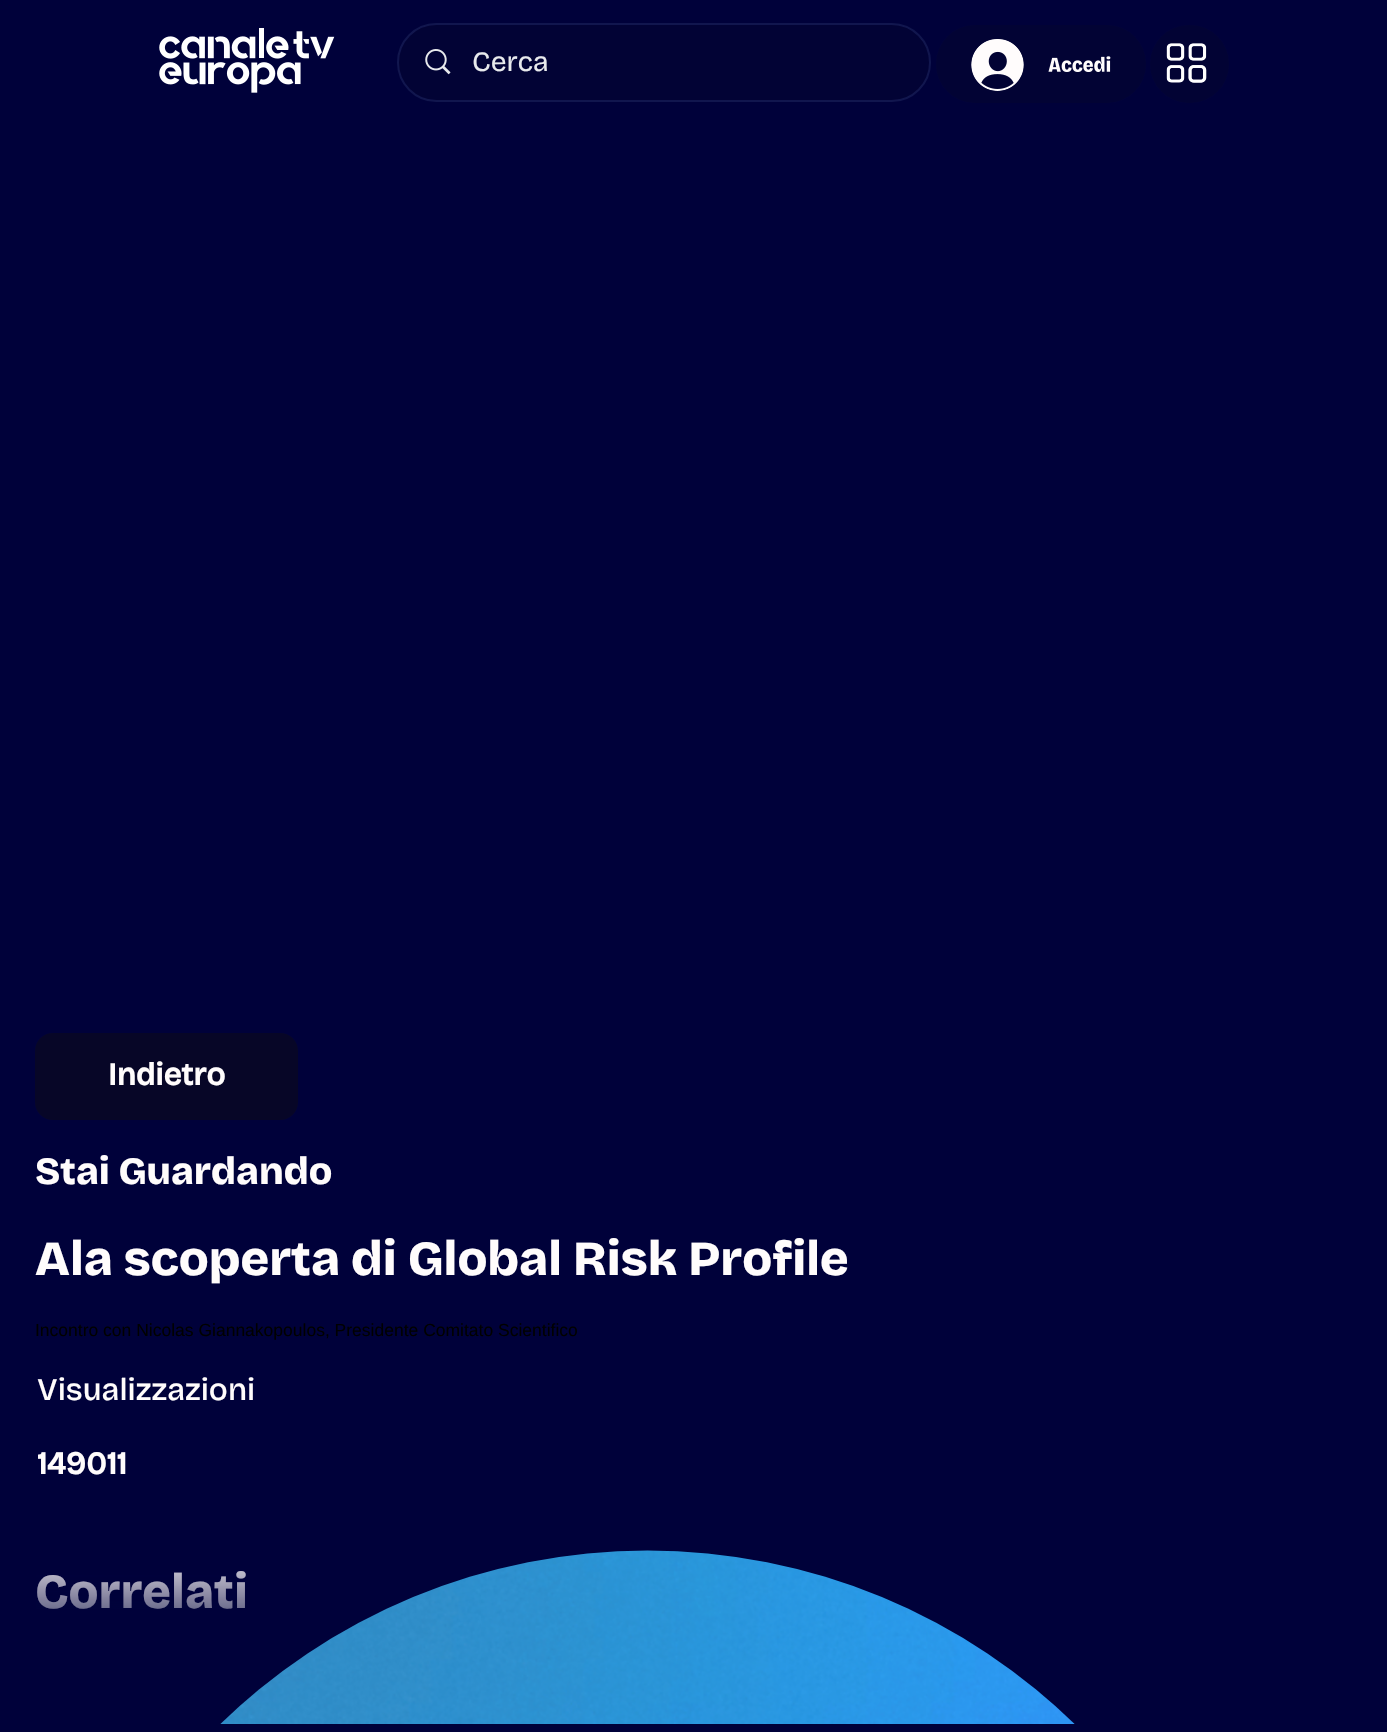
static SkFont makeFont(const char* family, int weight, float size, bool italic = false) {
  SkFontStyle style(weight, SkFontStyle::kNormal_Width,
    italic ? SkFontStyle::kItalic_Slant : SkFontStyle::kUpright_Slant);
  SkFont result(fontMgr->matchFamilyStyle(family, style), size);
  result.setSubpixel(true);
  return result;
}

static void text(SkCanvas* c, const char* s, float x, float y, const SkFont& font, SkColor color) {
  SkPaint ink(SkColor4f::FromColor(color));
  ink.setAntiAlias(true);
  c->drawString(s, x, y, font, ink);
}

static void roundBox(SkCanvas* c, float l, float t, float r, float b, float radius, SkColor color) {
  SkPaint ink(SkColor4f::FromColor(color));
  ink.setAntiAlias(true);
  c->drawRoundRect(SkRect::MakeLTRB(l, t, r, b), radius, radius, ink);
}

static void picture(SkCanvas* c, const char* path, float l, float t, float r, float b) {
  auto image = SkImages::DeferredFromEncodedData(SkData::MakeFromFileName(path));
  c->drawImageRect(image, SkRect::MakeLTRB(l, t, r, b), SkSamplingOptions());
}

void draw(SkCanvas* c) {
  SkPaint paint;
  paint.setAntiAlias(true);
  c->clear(0xff00013a);
  picture(c, "img_01.png", 159, 28, 335, 93);
  paint.setStyle(SkPaint::kStroke_Style);
  paint.setStrokeWidth(2);
  paint.setColor(0xff11164e);
  c->drawRoundRect(SkRect::MakeLTRB(398, 24, 930, 101), 38.5f, 38.5f, paint);
  roundBox(c, 399, 25, 929, 100, 37.5f, 0x4d070627);
  picture(c, "img_02.png", 425, 49, 451, 75);
  SkFont face1 = makeFont("Bricolage Grotesque", 400, 28);
  text(c, "Cerca", 472, 71, face1, 0xffe8eaed);
  roundBox(c, 936, 25, 1146, 103, 39, 0xff020334);
  picture(c, "img_03.png", 971, 39, 1024, 91);
  picture(c, "img_04.png", 1048, 56, 1111, 72);
  roundBox(c, 1150, 25, 1229, 103, 39, 0xff020334);
  picture(c, "img_05.png", 1166, 43, 1207, 83);
  roundBox(c, 35, 1033, 298, 1120, 18, 0xff070627);
  SkFont face2 = makeFont("Bricolage Grotesque", 700, 31.5f);
  text(c, "Indietro", 108, 1085, face2, 0xfffffcfc);
  SkFont face3 = makeFont("Bricolage Grotesque", 800, 38.5f);
  text(c, "Stai Guardando", 35, 1184, face3, 0xfffffcfc);
  SkFont face4 = makeFont("Bricolage Grotesque", 800, 49);
  text(c, "Ala scoperta di Global Risk Profile", 35, 1275, face4, 0xfffffcfc);
  SkFont face5 = makeFont("Liberation Sans", 400, 17.5f);
  text(c, "Incontro con Nicolas Giannakopoulos, Presidente Comitato Scientifico", 35, 1336, face5, 0xff000000);
  SkFont face6 = makeFont("Bricolage Grotesque", 500, 31.5f);
  text(c, "Visualizzazioni", 37, 1400, face6, 0xfffffcfc);
  text(c, "149011", 37, 1474, face2, 0xfffffcfc);
  text(c, "Correlati", 35, 1608, face4, 0xfffffcfc);
  paint.setStyle(SkPaint::kFill_Style);
  {
    const SkColor colors[] = {0xff00013a, 0x0000013a};
    const float stops[] = {0.37f, 1};
    const SkPoint ends[] = {{694, 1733}, {694, 1540}};
    paint.setShader(SkGradientShader::MakeLinear(ends, colors, stops, 2, SkTileMode::kClamp));
    paint.setAlpha(255);
  }
  c->drawRect(SkRect::MakeLTRB(36, 1571, 246, 1609), paint);
  picture(c, "img_06.png", 220, 1550, 1075, 1724);
}
